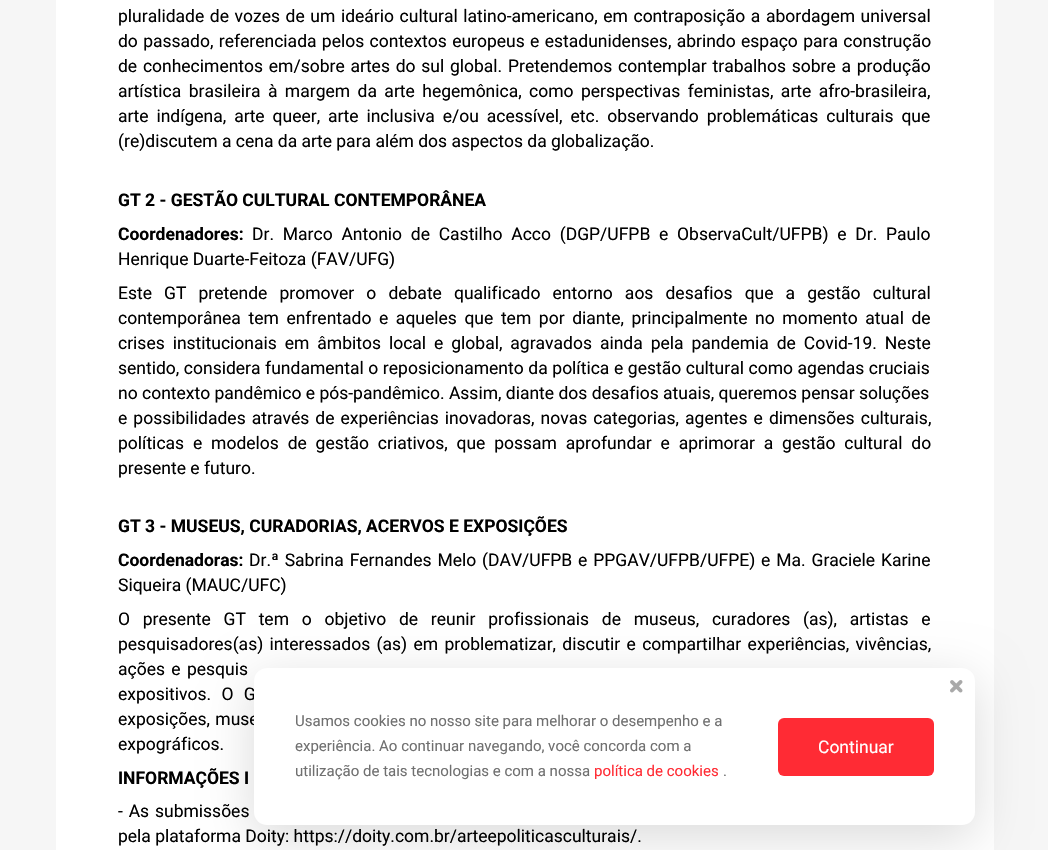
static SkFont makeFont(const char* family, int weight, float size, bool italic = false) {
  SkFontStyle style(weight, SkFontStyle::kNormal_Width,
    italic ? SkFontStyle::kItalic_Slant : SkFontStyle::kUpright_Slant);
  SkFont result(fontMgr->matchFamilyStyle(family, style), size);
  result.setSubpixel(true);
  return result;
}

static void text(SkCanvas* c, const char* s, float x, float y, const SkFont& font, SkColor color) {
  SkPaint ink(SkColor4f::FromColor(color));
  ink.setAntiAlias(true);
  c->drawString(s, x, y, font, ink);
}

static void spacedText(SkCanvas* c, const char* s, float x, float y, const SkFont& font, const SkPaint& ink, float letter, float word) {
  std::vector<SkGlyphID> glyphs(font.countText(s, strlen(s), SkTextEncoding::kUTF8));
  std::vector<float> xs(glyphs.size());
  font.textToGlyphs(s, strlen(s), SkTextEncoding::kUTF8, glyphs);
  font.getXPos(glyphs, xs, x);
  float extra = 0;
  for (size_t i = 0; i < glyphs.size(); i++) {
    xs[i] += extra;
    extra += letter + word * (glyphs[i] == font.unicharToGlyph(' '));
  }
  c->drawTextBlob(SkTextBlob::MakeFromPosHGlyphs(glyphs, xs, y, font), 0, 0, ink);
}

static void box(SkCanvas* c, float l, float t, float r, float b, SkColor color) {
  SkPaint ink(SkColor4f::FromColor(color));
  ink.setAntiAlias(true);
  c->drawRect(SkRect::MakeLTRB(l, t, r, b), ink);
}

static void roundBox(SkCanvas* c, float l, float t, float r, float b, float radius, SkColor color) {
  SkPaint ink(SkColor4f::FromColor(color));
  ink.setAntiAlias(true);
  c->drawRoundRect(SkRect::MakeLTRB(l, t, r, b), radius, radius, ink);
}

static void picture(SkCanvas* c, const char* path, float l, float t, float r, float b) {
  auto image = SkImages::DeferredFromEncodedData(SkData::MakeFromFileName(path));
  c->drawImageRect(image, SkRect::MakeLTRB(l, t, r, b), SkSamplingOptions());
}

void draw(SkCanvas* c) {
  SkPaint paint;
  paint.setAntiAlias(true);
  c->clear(0xfff6f6f6);
  box(c, 56, 0, 994, 850, 0xffffffff);
  SkFont face1 = makeFont("Roboto", 400, 17.5f);
  paint.setColor(0xff000000);
  spacedText(c, "pluralidade de vozes de um ideário cultural latino-americano, em contraposição a abordagem universal", 118, 22, face1, paint, 0, 1.25f);
  spacedText(c, "do passado, referenciada pelos contextos europeus e estadunidenses, abrindo espaço para construção", 118, 47, face1, paint, 0, 1);
  spacedText(c, "de conhecimentos em/sobre artes do sul global. Pretendemos contemplar trabalhos sobre a produção", 118, 72, face1, paint, 0, 1.4f);
  spacedText(c, "artística brasileira à margem da arte hegemônica, como perspectivas feministas, arte afro-brasileira,", 118, 97, face1, paint, 0, 3.1f);
  spacedText(c, "arte indígena, arte queer, arte inclusiva e/ou acessível, etc. observando problemáticas culturais que", 118, 122, face1, paint, 0, 3.6f);
  text(c, "(re)discutem a cena da arte para além dos aspectos da globalização.", 118, 147, face1, 0xff000000);
  SkFont face2 = makeFont("Roboto", 700, 17.5f);
  text(c, "GT 2 - GESTÃO CULTURAL CONTEMPORÂNEA", 118, 206, face2, 0xff000000);
  text(c, "Coordenadores:", 118, 240, face2, 0xff000000);
  spacedText(c, "Dr. Marco Antonio de Castilho Acco (DGP/UFPB e ObservaCult/UFPB) e Dr. Paulo", 252, 240, face1, paint, 0, 4.4f);
  text(c, "Henrique Duarte-Feitoza (FAV/UFG)", 118, 265, face1, 0xff000000);
  spacedText(c, "Este GT pretende promover o debate qualificado entorno aos desafios que a gestão cultural", 118, 299, face1, paint, 0, 7.75f);
  spacedText(c, "contemporânea tem enfrentado e aqueles que tem por diante, principalmente no momento atual de", 118, 324, face1, paint, 0, 3.25f);
  spacedText(c, "crises institucionais em âmbitos local e global, agravados ainda pela pandemia de Covid-19. Neste", 118, 349, face1, paint, 0, 3.6f);
  spacedText(c, "sentido, considera fundamental o reposicionamento da política e gestão cultural como agendas cruciais", 118, 374, face1, paint, 0, 0.25f);
  text(c, "no contexto pandêmico e pós-pandêmico. Assim, diante dos desafios atuais, queremos pensar soluções", 118, 399, face1, 0xff000000);
  spacedText(c, "e possibilidades através de experiências inovadoras, novas categorias, agentes e dimensões culturais,", 118, 424, face1, paint, 0, 1.75f);
  spacedText(c, "políticas e modelos de gestão criativos, que possam aprofundar e aprimorar a gestão cultural do", 118, 449, face1, paint, 0, 4.5f);
  text(c, "presente e futuro.", 118, 474, face1, 0xff000000);
  text(c, "GT 3 - MUSEUS, CURADORIAS, ACERVOS E EXPOSIÇÕES", 118, 532, face2, 0xff000000);
  text(c, "Coordenadoras:", 118, 566, face2, 0xff000000);
  spacedText(c, "Dr.ª Sabrina Fernandes Melo (DAV/UFPB e PPGAV/UFPB/UFPE) e Ma. Graciele Karine", 249, 566, face1, paint, 0, 1.5f);
  text(c, "Siqueira (MAUC/UFC)", 118, 591, face1, 0xff000000);
  spacedText(c, "O presente GT tem o objetivo de reunir profissionais de museus, curadores (as), artistas e", 118, 625, face1, paint, 0, 8.4f);
  spacedText(c, "pesquisadores(as) interessados (as) em problematizar, discutir e compartilhar experiências, vivências,", 118, 650, face1, paint, 0, 2);
  spacedText(c, "ações e pesquis", 118, 675, face1, paint, 0, 2);
  spacedText(c, "expositivos. O G", 118, 700, face1, paint, 0, 6);
  spacedText(c, "exposições, muse", 118, 725, face1, paint, 0, 1);
  text(c, "expográficos.", 118, 750, face1, 0xff000000);
  text(c, "INFORMAÇÕES I", 118, 784, face2, 0xff000000);
  spacedText(c, "- As submissões", 118, 817, face1, paint, 0, 1.5f);
  text(c, "pela plataforma Doity: https://doity.com.br/arteepoliticasculturais/.", 118, 842, face1, 0xff000000);
  paint.setColor(0x24000000);
  paint.setMaskFilter(SkMaskFilter::MakeBlur(kNormal_SkBlurStyle, 25));
  c->drawRoundRect(SkRect::MakeLTRB(254, 680, 975, 838), 13, 13, paint);
  paint.setMaskFilter(nullptr);
  roundBox(c, 254, 668, 975, 825, 13, 0xffffffff);
  picture(c, "img_01.png", 950, 680, 963, 693);
  SkFont face3 = makeFont("Roboto", 400, 15);
  text(c, "Usamos cookies no nosso site para melhorar o desempenho e a", 295, 726, face3, 0xff707070);
  text(c, "experiência. Ao continuar navegando, você concorda com a", 295, 751, face3, 0xff707070);
  text(c, "utilização de tais tecnologias e com a nossa", 295, 776, face3, 0xff707070);
  text(c, "política de cookies", 594, 776, face3, 0xffff2b34);
  text(c, ".", 723, 776, face3, 0xff707070);
  roundBox(c, 778, 718, 934, 776, 6, 0xffff2b34);
  text(c, "Continuar", 818, 753, face1, 0xffffffff);
}
